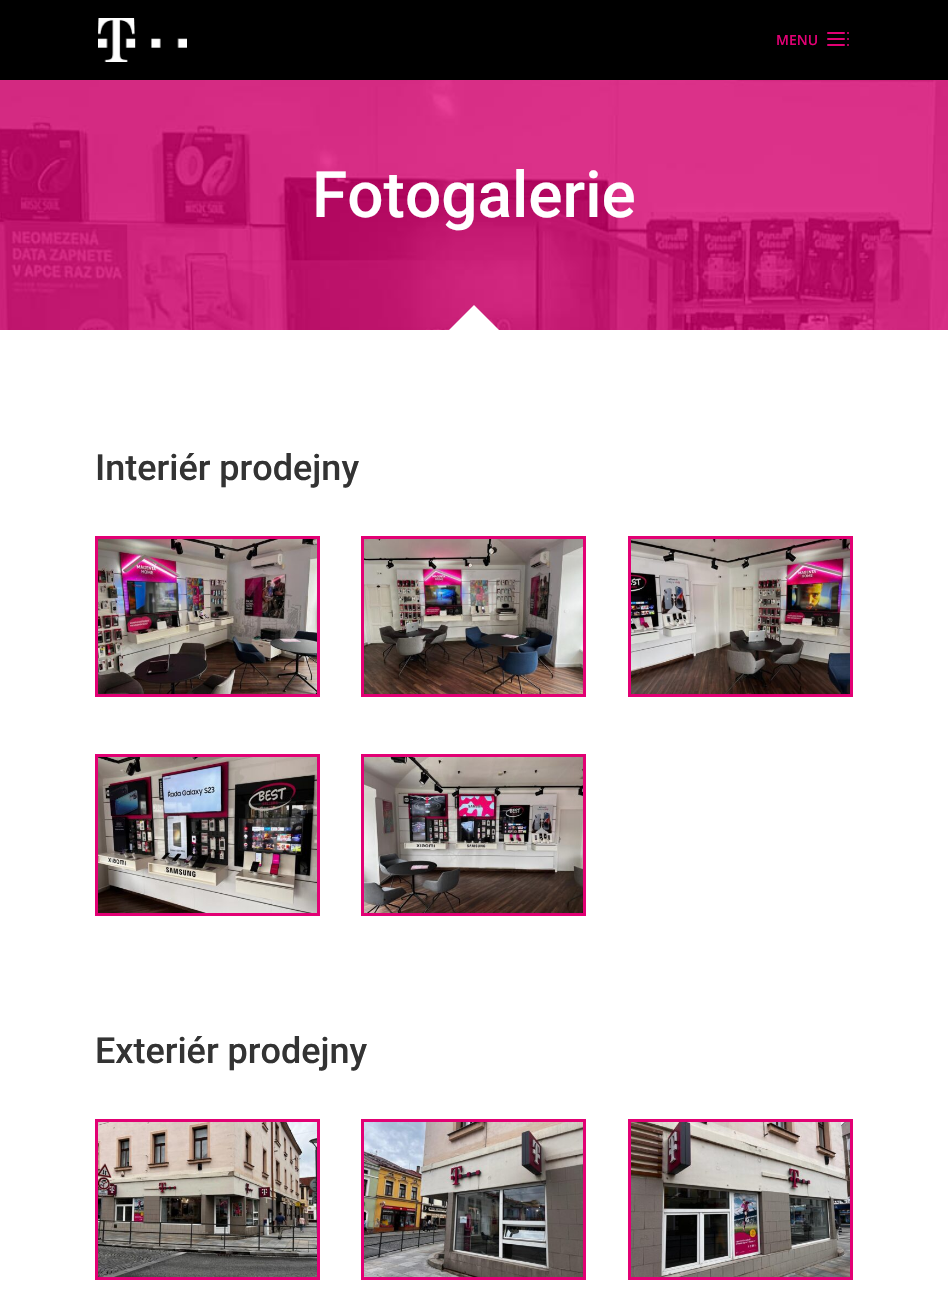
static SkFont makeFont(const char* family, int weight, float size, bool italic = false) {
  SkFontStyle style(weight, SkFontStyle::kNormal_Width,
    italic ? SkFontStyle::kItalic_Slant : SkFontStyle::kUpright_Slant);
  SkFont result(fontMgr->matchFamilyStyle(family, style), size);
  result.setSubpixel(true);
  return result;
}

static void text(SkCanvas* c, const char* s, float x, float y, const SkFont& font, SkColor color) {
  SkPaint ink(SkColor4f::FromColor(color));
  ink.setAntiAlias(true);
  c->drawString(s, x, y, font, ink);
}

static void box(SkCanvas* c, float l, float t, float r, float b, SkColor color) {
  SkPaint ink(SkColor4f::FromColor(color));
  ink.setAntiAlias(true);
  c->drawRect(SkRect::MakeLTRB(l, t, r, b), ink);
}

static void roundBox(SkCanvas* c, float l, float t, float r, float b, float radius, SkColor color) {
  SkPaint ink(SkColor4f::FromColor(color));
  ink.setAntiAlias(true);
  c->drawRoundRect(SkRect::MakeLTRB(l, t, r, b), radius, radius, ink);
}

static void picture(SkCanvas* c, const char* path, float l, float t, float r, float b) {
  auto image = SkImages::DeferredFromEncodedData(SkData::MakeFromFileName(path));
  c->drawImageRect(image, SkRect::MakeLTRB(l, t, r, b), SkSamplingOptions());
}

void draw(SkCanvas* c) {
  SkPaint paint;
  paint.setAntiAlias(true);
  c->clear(0xffffffff);
  box(c, 0, 0, 948, 80, 0xff000000);
  picture(c, "img_01.png", 98, 18, 187, 62);
  SkFont face1 = makeFont("Open Sans", 600, 14);
  text(c, "MENU", 776, 45, face1, 0xffe20074);
  roundBox(c, 827, 32, 845, 34, 1, 0xffe20074);
  paint.setColor(0xffe20074);
  c->drawCircle(848, 33, 1, paint);
  roundBox(c, 827, 38, 845, 40, 1, 0xffe20074);
  c->drawCircle(848, 39, 1, paint);
  roundBox(c, 827, 44, 845, 46, 1, 0xffe20074);
  c->drawCircle(848, 45, 1, paint);
  picture(c, "img_02.png", 0, 80, 948, 330);
  SkFont face2 = makeFont("Roboto", 500, 64);
  text(c, "Fotogalerie", 312, 217, face2, 0xffffffff);
  paint.setColor(0xffffffff);
  c->drawPath(SkPathBuilder().moveTo(474, 305).lineTo(499, 330).lineTo(474, 355).lineTo(449, 330).close().detach(), paint);
  SkFont face3 = makeFont("Roboto", 500, 36);
  text(c, "Interiér prodejny", 95, 480, face3, 0xff333333);
  paint.setStyle(SkPaint::kStroke_Style);
  paint.setStrokeWidth(3);
  paint.setColor(0xffe20074);
  c->drawRect(SkRect::MakeLTRB(96.5f, 537.5f, 318.5f, 695.5f), paint);
  picture(c, "img_03.png", 98, 539, 317, 694);
  c->drawRect(SkRect::MakeLTRB(362.5f, 537.5f, 584.5f, 695.5f), paint);
  picture(c, "img_04.png", 364, 539, 583, 694);
  c->drawRect(SkRect::MakeLTRB(629.5f, 537.5f, 851.5f, 695.5f), paint);
  picture(c, "img_05.png", 631, 539, 850, 694);
  c->drawRect(SkRect::MakeLTRB(96.5f, 755.5f, 318.5f, 914.5f), paint);
  picture(c, "img_06.png", 98, 757, 317, 913);
  c->drawRect(SkRect::MakeLTRB(362.5f, 755.5f, 584.5f, 914.5f), paint);
  picture(c, "img_07.png", 364, 757, 583, 913);
  text(c, "Exteriér prodejny", 95, 1063, face3, 0xff333333);
  c->drawRect(SkRect::MakeLTRB(96.5f, 1120.5f, 318.5f, 1278.5f), paint);
  picture(c, "img_08.png", 98, 1122, 317, 1277);
  c->drawRect(SkRect::MakeLTRB(362.5f, 1120.5f, 584.5f, 1278.5f), paint);
  picture(c, "img_09.png", 364, 1122, 583, 1277);
  c->drawRect(SkRect::MakeLTRB(629.5f, 1120.5f, 851.5f, 1278.5f), paint);
  picture(c, "img_10.png", 631, 1122, 850, 1277);
}
